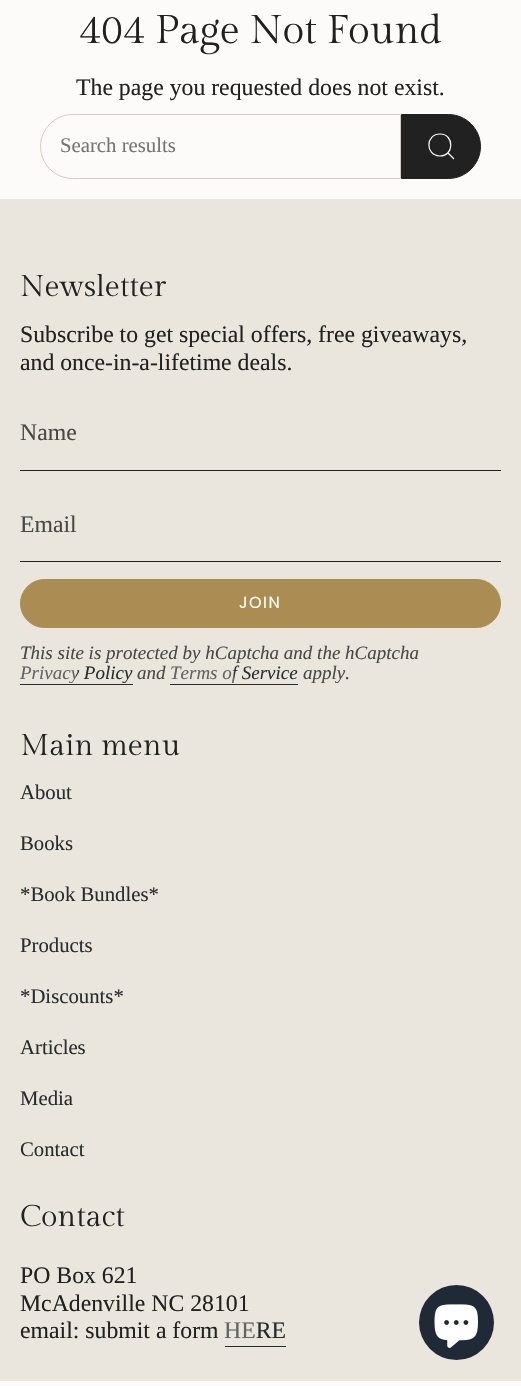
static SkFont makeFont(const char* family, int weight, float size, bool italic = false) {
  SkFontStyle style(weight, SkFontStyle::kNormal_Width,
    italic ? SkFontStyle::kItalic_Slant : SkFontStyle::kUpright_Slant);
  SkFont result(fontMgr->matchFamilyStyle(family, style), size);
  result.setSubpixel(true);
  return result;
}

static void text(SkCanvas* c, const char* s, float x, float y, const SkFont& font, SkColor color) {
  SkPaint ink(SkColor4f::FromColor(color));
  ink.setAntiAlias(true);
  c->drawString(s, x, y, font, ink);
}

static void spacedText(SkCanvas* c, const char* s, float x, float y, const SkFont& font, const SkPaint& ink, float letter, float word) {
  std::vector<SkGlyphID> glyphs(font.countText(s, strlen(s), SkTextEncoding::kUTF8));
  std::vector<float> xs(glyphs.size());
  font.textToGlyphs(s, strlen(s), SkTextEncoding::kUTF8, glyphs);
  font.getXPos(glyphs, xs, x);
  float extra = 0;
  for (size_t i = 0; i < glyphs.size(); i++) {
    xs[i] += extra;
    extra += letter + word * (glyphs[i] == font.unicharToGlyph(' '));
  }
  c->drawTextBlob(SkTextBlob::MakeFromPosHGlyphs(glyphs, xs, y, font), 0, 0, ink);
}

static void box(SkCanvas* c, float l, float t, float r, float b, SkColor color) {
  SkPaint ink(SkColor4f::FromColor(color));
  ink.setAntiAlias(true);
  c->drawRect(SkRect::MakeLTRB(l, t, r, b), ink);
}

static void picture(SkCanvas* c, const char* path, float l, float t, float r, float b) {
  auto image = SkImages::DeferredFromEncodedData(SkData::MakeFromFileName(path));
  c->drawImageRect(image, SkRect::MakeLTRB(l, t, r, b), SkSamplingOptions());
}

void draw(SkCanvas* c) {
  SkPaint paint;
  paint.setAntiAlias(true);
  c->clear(0xfffcfbf9);
  SkFont face1 = makeFont("Gilda Display", 400, 40);
  text(c, "404 Page Not Found", 79, 43, face1, 0xff212121);
  SkFont face2 = makeFont("Liberation Serif", 400, 23.75f);
  text(c, "The page you requested does not exist.", 76, 95, face2, 0xff212121);
  paint.setStyle(SkPaint::kStroke_Style);
  paint.setStrokeWidth(1);
  paint.setColor(0xffd1cdc4);
  c->drawPath(SkPathBuilder().moveTo(72.5f, 114.5f).lineTo(400.5f, 114.5f).lineTo(400.5f, 178.5f).lineTo(72.5f, 178.5f).cubicTo(55, 178.5f, 40.5f, 164, 40.5f, 146.5f).cubicTo(40.5f, 129, 55, 114.5f, 72.5f, 114.5f).close().detach(), paint);
  SkFont face3 = makeFont("Liberation Serif", 400, 20.75f);
  text(c, "Search results", 60, 152, face3, 0xff757575);
  paint.setStyle(SkPaint::kFill_Style);
  paint.setColor(0xff212121);
  c->drawPath(SkPathBuilder().moveTo(401.5f, 114.5f).lineTo(448.5f, 114.5f).cubicTo(466, 114.5f, 480.5f, 129, 480.5f, 146.5f).cubicTo(480.5f, 164, 466, 178.5f, 448.5f, 178.5f).lineTo(401.5f, 178.5f).close().detach(), paint);
  paint.setStyle(SkPaint::kStroke_Style);
  c->drawPath(SkPathBuilder().moveTo(401.5f, 114.5f).lineTo(448.5f, 114.5f).cubicTo(466, 114.5f, 480.5f, 129, 480.5f, 146.5f).cubicTo(480.5f, 164, 466, 178.5f, 448.5f, 178.5f).lineTo(401.5f, 178.5f).close().detach(), paint);
  paint.setStrokeWidth(1.2f);
  paint.setColor(0xffffffff);
  c->drawPath(SkPathBuilder().moveTo(440, 134).cubicTo(454.5f, 134, 454.5f, 156.5f, 439.5f, 156).cubicTo(425, 155, 425.5f, 134, 440, 134).close().moveTo(447.5f, 152.5f).lineTo(454, 159).detach(), paint);
  box(c, 0, 199, 521, 1381, 0xffeae6dd);
  SkFont face4 = makeFont("Gilda Display", 400, 30);
  text(c, "Newsletter", 20, 296, face4, 0xff212121);
  text(c, "Subscribe to get special offers, free giveaways,", 20, 342, face2, 0xff212121);
  text(c, "and once-in-a-lifetime deals.", 20, 370, face2, 0xff212121);
  box(c, 20, 470, 501, 471, 0xff212121);
  text(c, "Name", 20, 440, face2, 0xff494847);
  box(c, 20, 561, 501, 562, 0xff212121);
  text(c, "Email", 20, 532, face2, 0xff494847);
  paint.setStyle(SkPaint::kFill_Style);
  paint.setColor(0xffab8c52);
  c->drawRoundRect(SkRect::MakeLTRB(20.5f, 579.5f, 500.5f, 627.5f), 24, 24, paint);
  paint.setStyle(SkPaint::kStroke_Style);
  paint.setStrokeWidth(1);
  c->drawRoundRect(SkRect::MakeLTRB(20.5f, 579.5f, 500.5f, 627.5f), 24, 24, paint);
  SkFont face5 = makeFont("Poppins", 400, 16);
  paint.setStyle(SkPaint::kFill_Style);
  paint.setColor(0xffffffff);
  spacedText(c, "JOIN", 239, 608, face5, paint, 1.5f, 0);
  SkFont face6 = makeFont("Liberation Serif", 400, 19, true);
  text(c, "This site is protected by hCaptcha and the hCaptcha", 20, 659, face6, 0xff494847);
  {
    const SkColor colors[] = {0xff626463, 0xff626463, 0xff282c2e, 0xff282c2e};
    const float stops[] = {0, 0.5f, 0.5f, 1};
    const SkPoint ends[] = {{20, 673}, {132, 673}};
    paint.setShader(SkGradientShader::MakeLinear(ends, colors, stops, 4, SkTileMode::kClamp));
    paint.setAlpha(255);
  }
  c->drawString("Privacy Policy", 20, 679, face6, paint);
  box(c, 20, 684, 133, 685, 0xff282c2e);
  text(c, "and", 137, 679, face6, 0xff494847);
  {
    const SkColor colors[] = {0xff626463, 0xff626463, 0xff282c2e, 0xff282c2e};
    const float stops[] = {0, 0.5f, 0.5f, 1};
    const SkPoint ends[] = {{170, 673}, {298, 673}};
    paint.setShader(SkGradientShader::MakeLinear(ends, colors, stops, 4, SkTileMode::kClamp));
    paint.setAlpha(255);
  }
  c->drawString("Terms of Service", 170, 679, face6, paint);
  box(c, 170, 684, 298, 685, 0xff282c2e);
  text(c, "apply.", 303, 679, face6, 0xff494847);
  text(c, "Main menu", 20, 755, face4, 0xff212121);
  text(c, "About", 20, 799, face3, 0xff282c2e);
  text(c, "Books", 20, 850, face3, 0xff282c2e);
  text(c, "*Book Bundles*", 20, 901, face3, 0xff282c2e);
  text(c, "Products", 20, 952, face3, 0xff282c2e);
  text(c, "*Discounts*", 20, 1003, face3, 0xff282c2e);
  text(c, "Articles", 20, 1054, face3, 0xff282c2e);
  text(c, "Media", 20, 1105, face3, 0xff282c2e);
  text(c, "Contact", 20, 1156, face3, 0xff282c2e);
  text(c, "Contact", 20, 1226, face4, 0xff212121);
  text(c, "PO Box 621", 20, 1283, face2, 0xff212121);
  text(c, "McAdenville NC 28101", 20, 1311, face2, 0xff212121);
  text(c, "email: submit a form", 20, 1338, face2, 0xff212121);
  {
    const SkColor colors[] = {0xff626463, 0xff626463, 0xff282c2e, 0xff282c2e};
    const float stops[] = {0, 0.5f, 0.5f, 1};
    const SkPoint ends[] = {{224, 1332}, {286, 1332}};
    paint.setShader(SkGradientShader::MakeLinear(ends, colors, stops, 4, SkTileMode::kClamp));
    paint.setAlpha(255);
  }
  c->drawString("HERE", 224, 1338, face2, paint);
  box(c, 225, 1346, 286, 1347, 0xff282c2e);
  paint.setShader(nullptr);
  paint.setColor(0xff202a36);
  c->drawCircle(456.5f, 1322.5f, 37.5f, paint);
  picture(c, "img_01.png", 434, 1304, 478, 1348);
}
